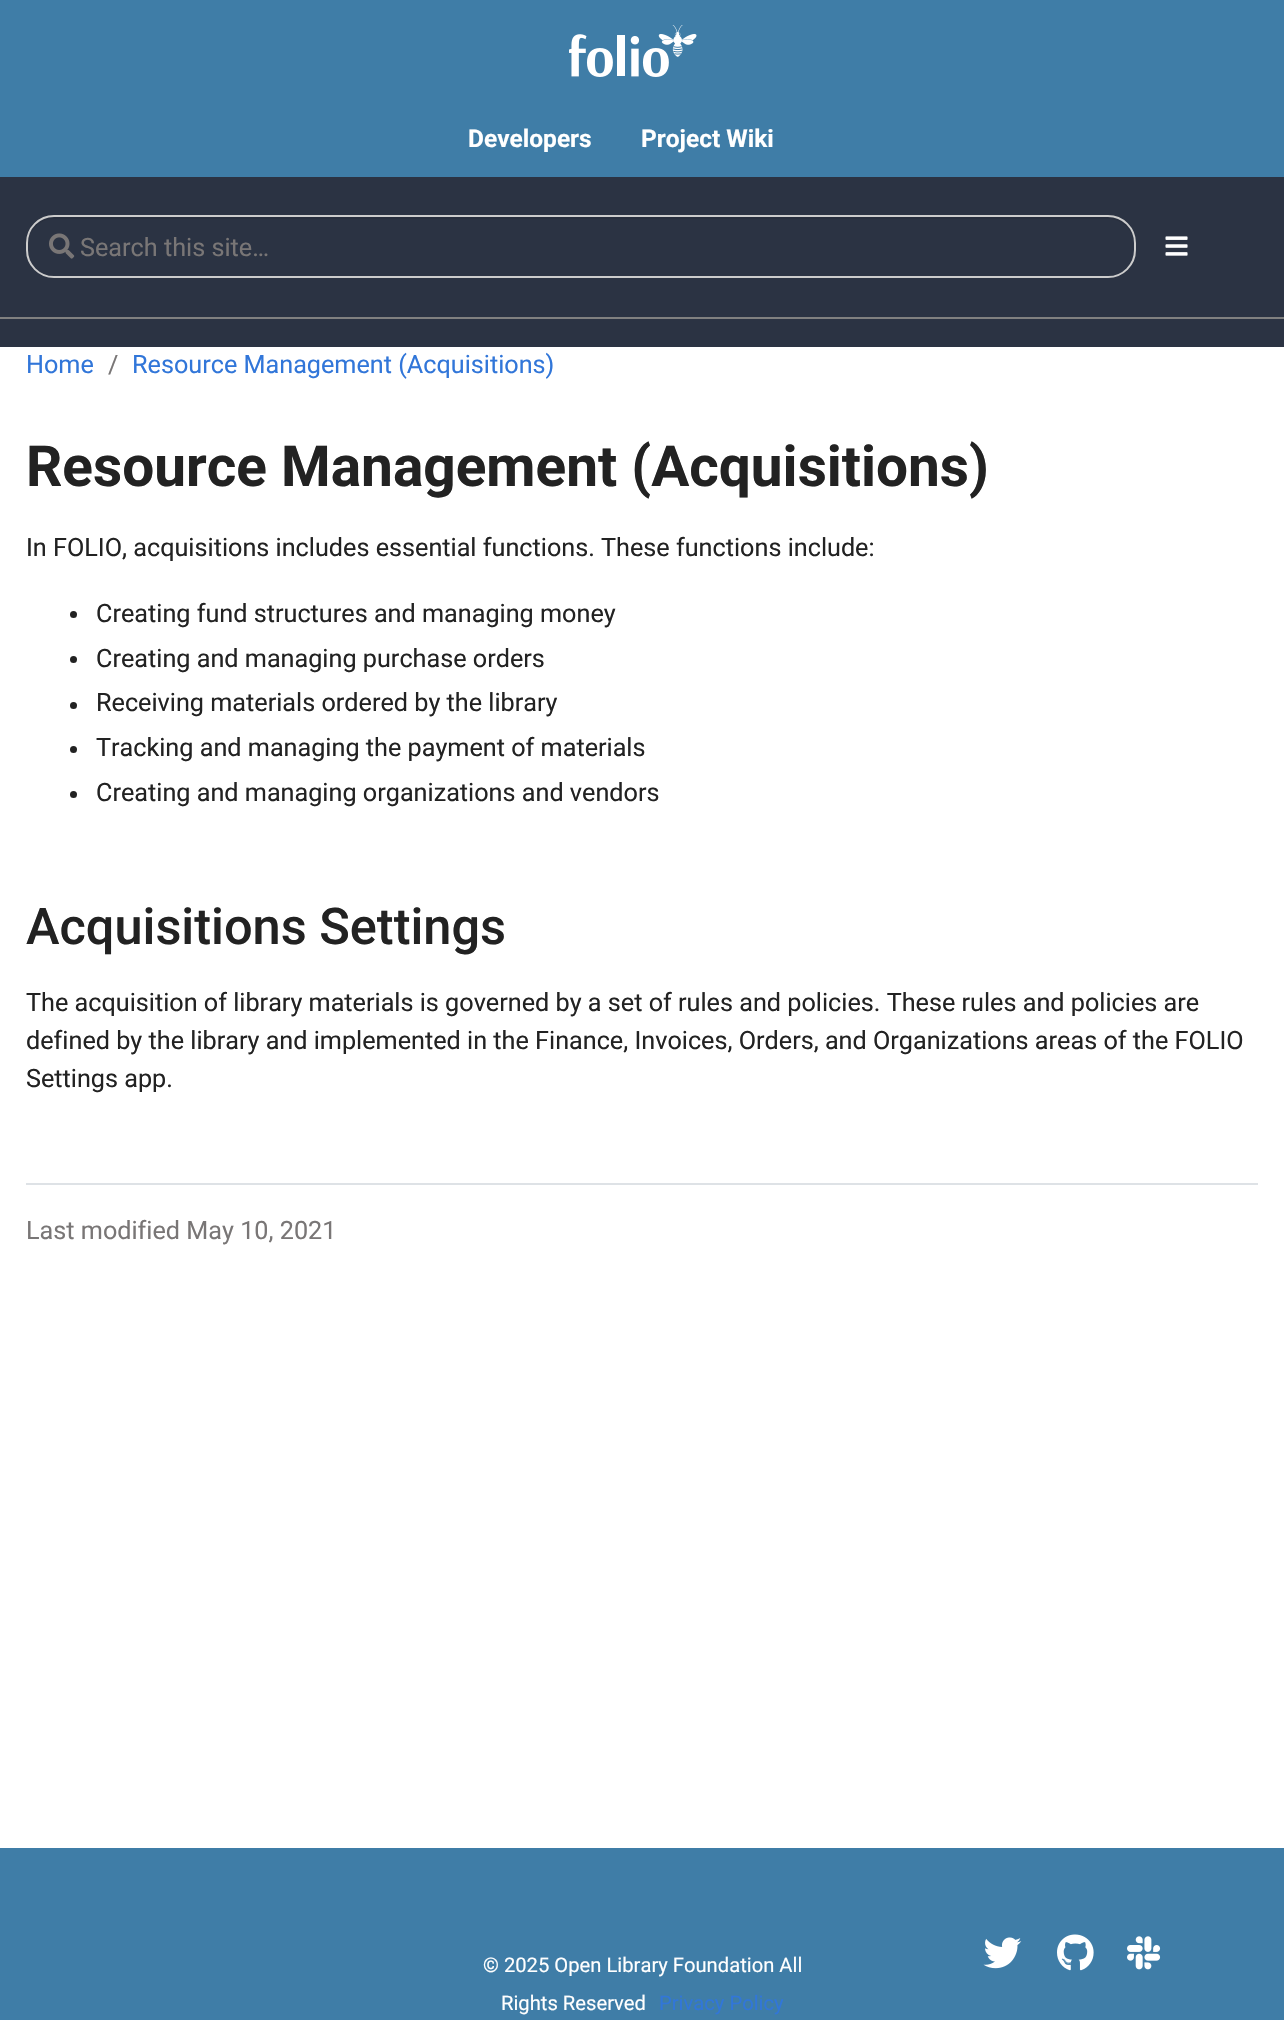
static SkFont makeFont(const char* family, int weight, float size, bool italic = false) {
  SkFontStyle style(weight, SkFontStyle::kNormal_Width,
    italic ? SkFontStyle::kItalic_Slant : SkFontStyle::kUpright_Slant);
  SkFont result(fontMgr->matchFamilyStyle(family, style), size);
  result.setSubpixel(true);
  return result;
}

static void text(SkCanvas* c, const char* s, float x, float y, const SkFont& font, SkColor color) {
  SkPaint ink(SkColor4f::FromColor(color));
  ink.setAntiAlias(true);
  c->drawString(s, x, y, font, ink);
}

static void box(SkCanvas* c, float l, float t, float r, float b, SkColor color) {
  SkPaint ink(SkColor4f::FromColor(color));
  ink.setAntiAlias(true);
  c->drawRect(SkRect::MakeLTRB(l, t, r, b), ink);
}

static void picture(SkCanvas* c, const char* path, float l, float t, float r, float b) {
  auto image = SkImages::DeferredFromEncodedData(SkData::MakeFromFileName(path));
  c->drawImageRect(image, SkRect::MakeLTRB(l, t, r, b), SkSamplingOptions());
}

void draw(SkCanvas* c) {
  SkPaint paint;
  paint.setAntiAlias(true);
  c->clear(0xffffffff);
  box(c, 0, 0, 1284, 177, 0xff3f7da7);
  picture(c, "img_01.png", 569, 25, 697, 77);
  SkFont face1 = makeFont("Roboto", 700, 24.5f);
  text(c, "Developers", 468, 147, face1, 0xffffffff);
  text(c, "Project Wiki", 641, 147, face1, 0xffffffff);
  box(c, 0, 177, 1284, 347, 0xff2b3343);
  box(c, 0, 317, 1284, 319, 0xff808080);
  paint.setColor(0xff282f3e);
  c->drawPath(SkPathBuilder().moveTo(54, 219).lineTo(1108, 219).cubicTo(1122, 219, 1134, 231, 1134, 245).cubicTo(1134, 230, 1124, 217, 1108, 217).lineTo(54, 217).cubicTo(38, 217, 28, 230, 28, 245).cubicTo(28, 231, 40, 219, 54, 219).close().detach(), paint);
  paint.setStyle(SkPaint::kStroke_Style);
  paint.setStrokeWidth(2);
  paint.setColor(0xffcccccc);
  c->drawRoundRect(SkRect::MakeLTRB(27, 216, 1135, 277), 27, 27, paint);
  picture(c, "img_02.png", 49, 233, 75, 259);
  SkFont face2 = makeFont("Roboto", 400, 25.2f);
  text(c, "Search this site…", 80, 256, face2, 0xff797676);
  picture(c, "img_03.png", 1165, 236, 1188, 256);
  text(c, "Home", 26, 373, face2, 0xff3176d9);
  text(c, "/", 108, 373, face2, 0xff797676);
  text(c, "Resource Management (Acquisitions)", 132, 373, face2, 0xff3176d9);
  SkFont face3 = makeFont("Roboto", 700, 56.75f);
  text(c, "Resource Management (Acquisitions)", 26, 486, face3, 0xff222222);
  text(c, "In FOLIO, acquisitions includes essential functions. These functions include:", 26, 556, face2, 0xff222222);
  paint.setStyle(SkPaint::kFill_Style);
  paint.setColor(0xff222222);
  c->drawCircle(73.5f, 614.5f, 3.5f, paint);
  text(c, "Creating fund structures and managing money", 96, 622, face2, 0xff222222);
  c->drawCircle(73.5f, 659.5f, 3.5f, paint);
  text(c, "Creating and managing purchase orders", 96, 667, face2, 0xff222222);
  c->drawCircle(73.5f, 705.5f, 3.5f, paint);
  text(c, "Receiving materials ordered by the library", 96, 711, face2, 0xff222222);
  c->drawCircle(73.5f, 749.5f, 3.5f, paint);
  text(c, "Tracking and managing the payment of materials", 96, 756, face2, 0xff222222);
  c->drawCircle(73.5f, 794.5f, 3.5f, paint);
  text(c, "Creating and managing organizations and vendors", 96, 801, face2, 0xff222222);
  SkFont face4 = makeFont("Roboto", 500, 50.5f);
  text(c, "Acquisitions Settings", 26, 944, face4, 0xff222222);
  text(c, "The acquisition of library materials is governed by a set of rules and policies. These rules and policies are", 26, 1011, face2, 0xff222222);
  text(c, "defined by the library and implemented in the Finance, Invoices, Orders, and Organizations areas of the FOLIO", 26, 1049, face2, 0xff222222);
  text(c, "Settings app.", 26, 1087, face2, 0xff222222);
  box(c, 26, 1183, 1258, 1185, 0xffdee2e6);
  text(c, "Last modified May 10, 2021", 26, 1239, face2, 0xff797676);
  box(c, 0, 1848, 1284, 2020, 0xff3f7da7);
  SkFont face5 = makeFont("Roboto", 400, 20.2f);
  text(c, "© 2025 Open Library Foundation All", 483, 1972, face5, 0xffffffff);
  text(c, "Rights Reserved", 501, 2010, face5, 0xffffffff);
  text(c, "Privacy Policy", 659, 2010, face5, 0xff3176d9);
  picture(c, "img_04.png", 983, 1937, 1022, 1969);
  picture(c, "img_05.png", 1057, 1934, 1094, 1971);
  picture(c, "img_06.png", 1127, 1936, 1161, 1970);
}
